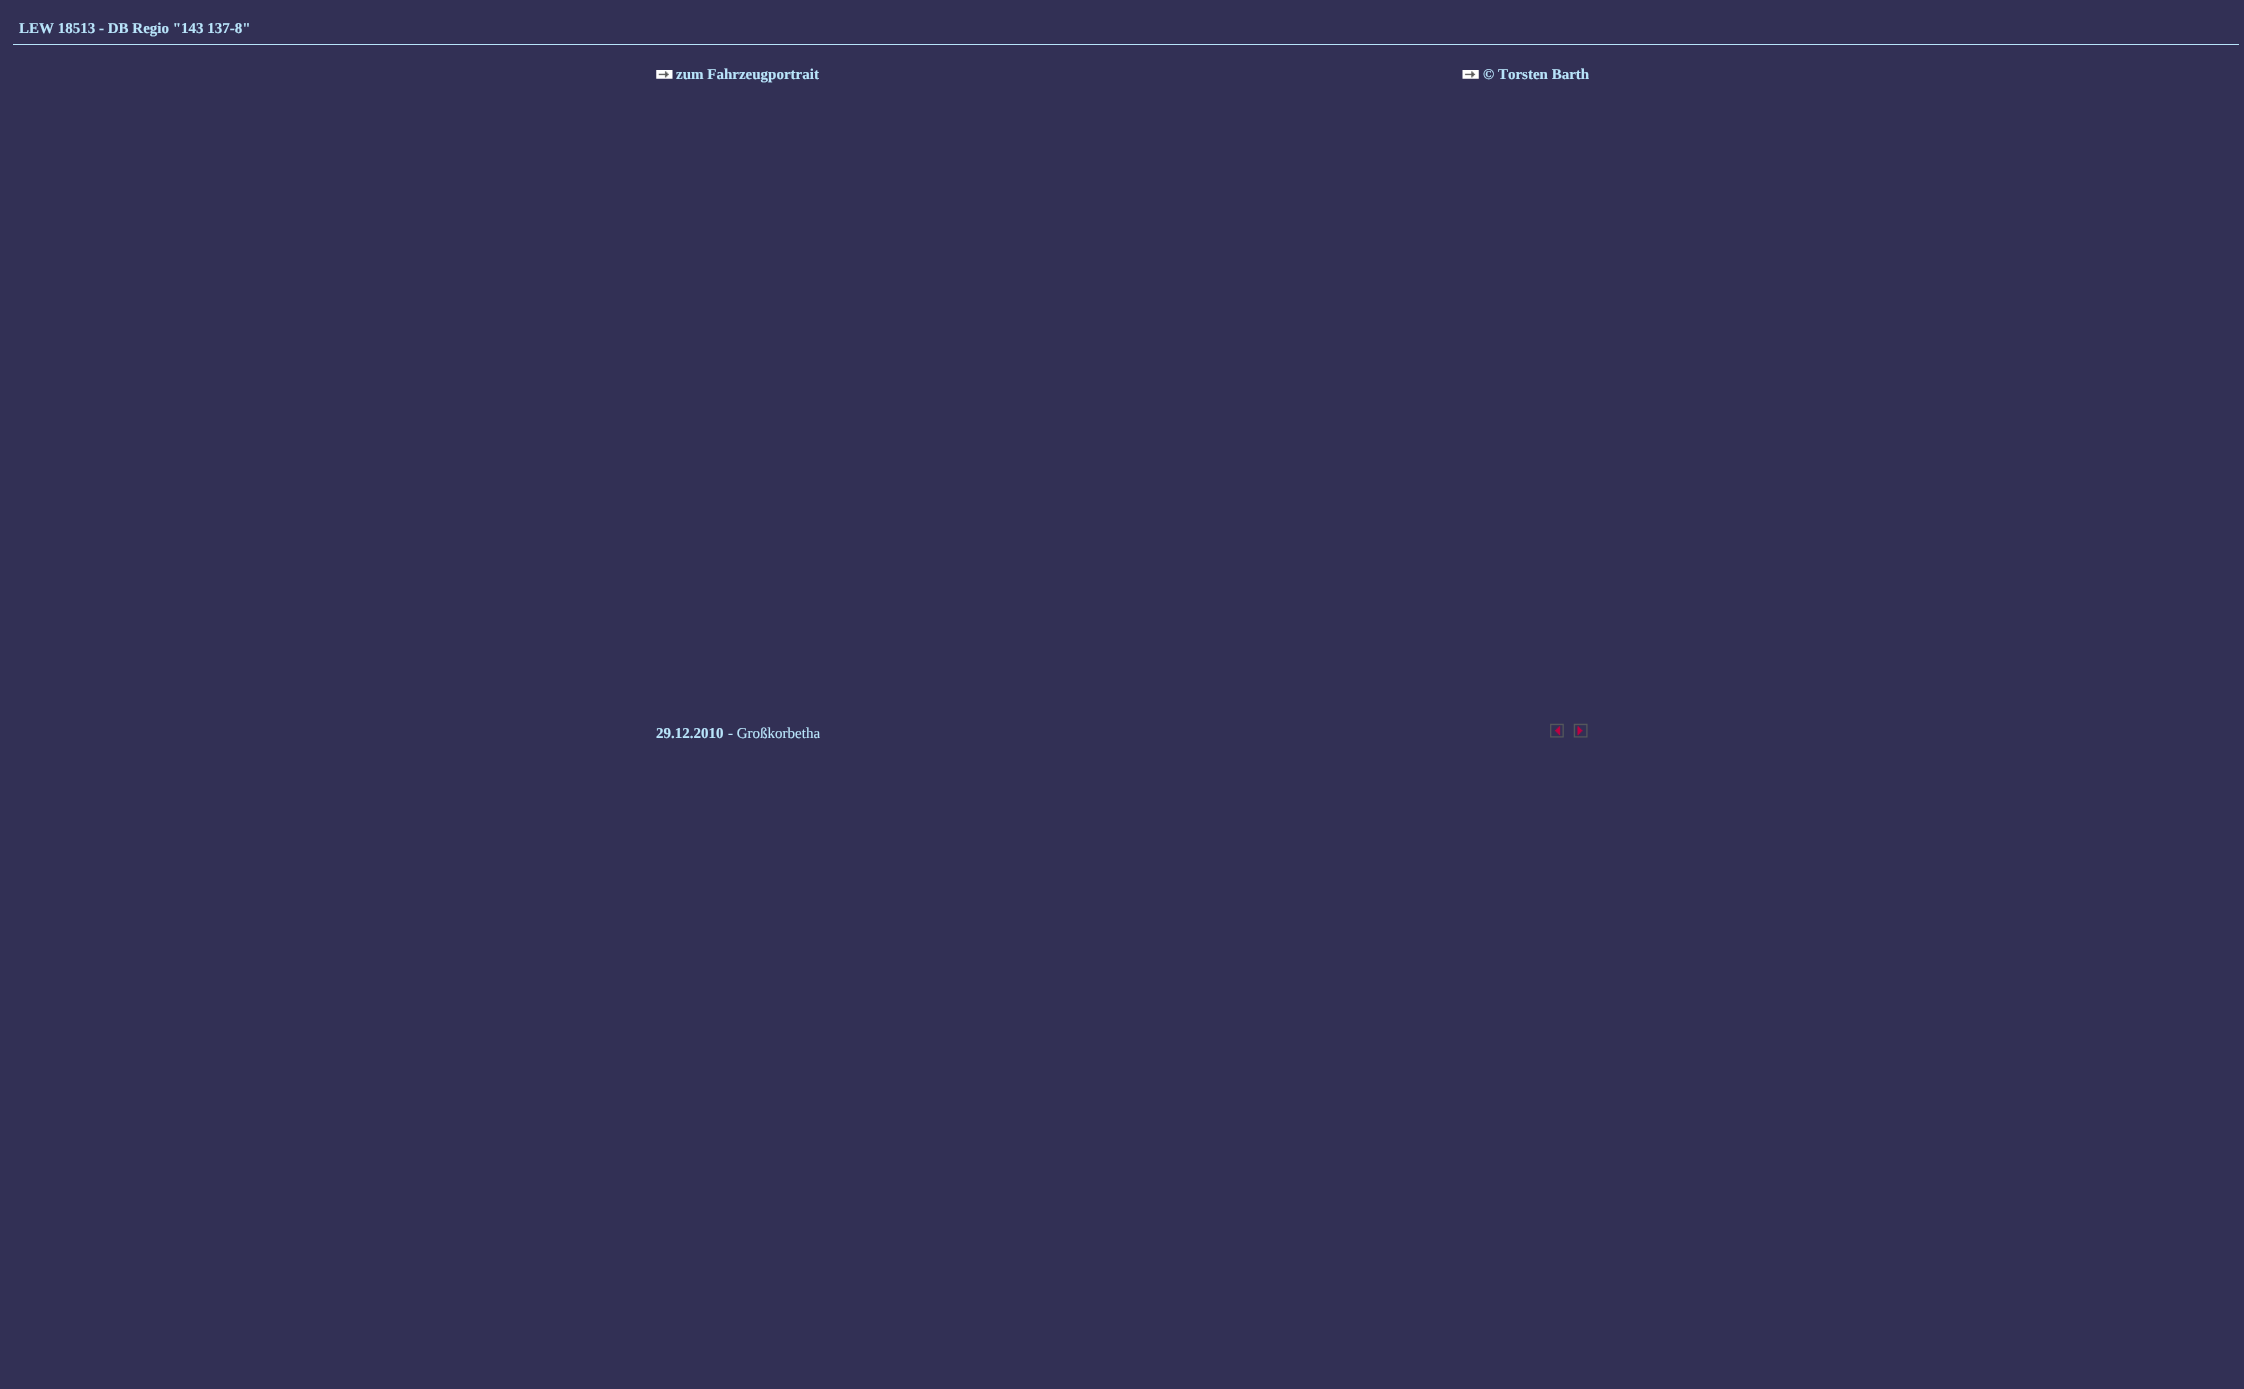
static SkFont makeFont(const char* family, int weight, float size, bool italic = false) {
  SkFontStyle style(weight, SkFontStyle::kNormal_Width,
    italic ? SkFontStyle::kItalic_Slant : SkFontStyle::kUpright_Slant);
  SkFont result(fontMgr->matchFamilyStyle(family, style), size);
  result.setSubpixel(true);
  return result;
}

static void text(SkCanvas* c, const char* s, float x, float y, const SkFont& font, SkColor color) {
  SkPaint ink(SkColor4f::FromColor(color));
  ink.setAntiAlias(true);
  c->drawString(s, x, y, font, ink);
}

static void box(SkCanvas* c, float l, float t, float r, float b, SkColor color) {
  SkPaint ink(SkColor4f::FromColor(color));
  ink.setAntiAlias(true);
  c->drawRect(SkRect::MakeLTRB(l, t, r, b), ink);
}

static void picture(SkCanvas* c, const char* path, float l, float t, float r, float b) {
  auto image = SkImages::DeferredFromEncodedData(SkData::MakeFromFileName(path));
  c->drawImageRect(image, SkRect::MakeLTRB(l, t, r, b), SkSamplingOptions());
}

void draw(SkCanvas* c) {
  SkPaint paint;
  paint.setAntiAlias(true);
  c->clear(0xff323055);
  box(c, 13, 44, 2239, 45, 0xffb8e4fa);
  SkFont face1 = makeFont("Liberation Serif", 700, 15);
  text(c, "LEW 18513 - DB Regio \"143 137-8\"", 19, 33, face1, 0xffb8e4fa);
  picture(c, "img_01.png", 656, 70, 673, 79);
  text(c, "zum Fahrzeugportrait", 676, 79, face1, 0xffb8e4fa);
  picture(c, "img_02.png", 1462, 70, 1479, 79);
  text(c, "© Torsten Barth", 1483, 79, face1, 0xffb8e4fa);
  text(c, "29.12.2010", 656, 738, face1, 0xffb8e4fa);
  SkFont face2 = makeFont("Liberation Serif", 400, 15);
  text(c, "- Großkorbetha", 728, 738, face2, 0xffb8e4fa);
  picture(c, "img_03.png", 1550, 723, 1564, 738);
  picture(c, "img_04.png", 1573, 723, 1588, 738);
}
